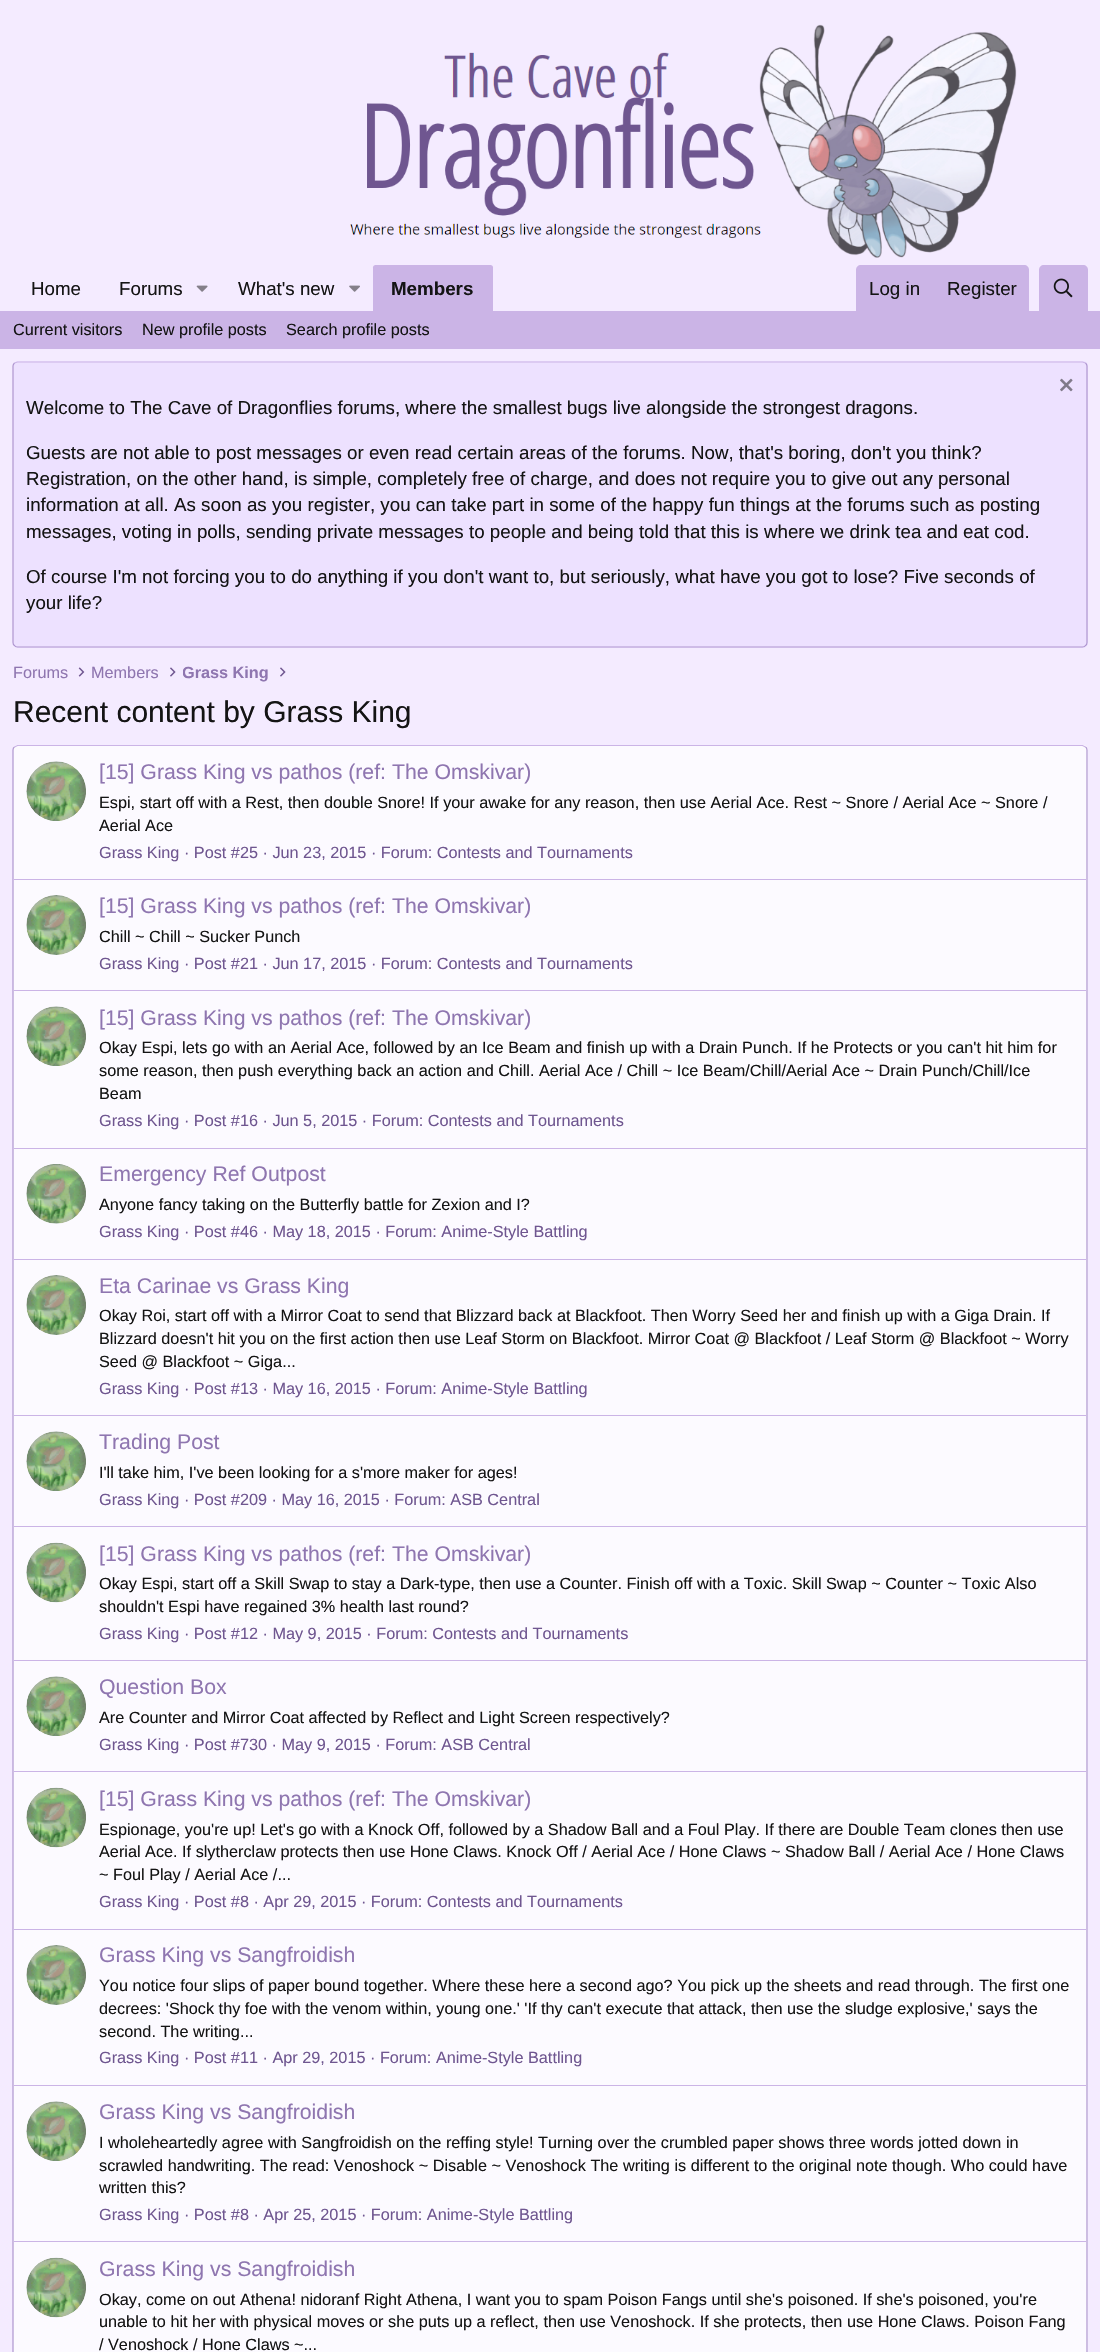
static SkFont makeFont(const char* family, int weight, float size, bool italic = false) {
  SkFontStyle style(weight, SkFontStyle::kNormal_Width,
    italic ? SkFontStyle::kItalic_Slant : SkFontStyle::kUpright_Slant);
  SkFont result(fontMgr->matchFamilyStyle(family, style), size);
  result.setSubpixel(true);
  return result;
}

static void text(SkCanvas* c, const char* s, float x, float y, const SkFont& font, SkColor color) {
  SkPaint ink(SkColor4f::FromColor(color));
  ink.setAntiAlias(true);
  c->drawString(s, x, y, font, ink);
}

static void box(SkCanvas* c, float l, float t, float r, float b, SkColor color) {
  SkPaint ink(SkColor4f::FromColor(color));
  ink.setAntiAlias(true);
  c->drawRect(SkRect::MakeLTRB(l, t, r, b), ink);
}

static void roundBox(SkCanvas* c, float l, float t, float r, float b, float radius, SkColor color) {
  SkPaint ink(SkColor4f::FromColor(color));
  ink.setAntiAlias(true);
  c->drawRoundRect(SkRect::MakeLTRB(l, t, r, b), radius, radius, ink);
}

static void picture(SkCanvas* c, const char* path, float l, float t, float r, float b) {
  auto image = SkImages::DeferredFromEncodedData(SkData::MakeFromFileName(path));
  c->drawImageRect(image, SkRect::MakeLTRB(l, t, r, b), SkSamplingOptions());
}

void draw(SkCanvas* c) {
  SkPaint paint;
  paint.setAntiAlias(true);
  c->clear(0xfff4ebff);
  picture(c, "img_01.png", 350, 24, 1017, 258);
  SkFont face1 = makeFont("Liberation Sans", 400, 18.75f);
  text(c, "Home", 31, 295, face1, 0xff141414);
  text(c, "Forums", 119, 295, face1, 0xff141414);
  picture(c, "img_02.png", 196, 285, 208, 292);
  text(c, "What's new", 238, 295, face1, 0xff141414);
  picture(c, "img_03.png", 349, 285, 360, 292);
  paint.setColor(0xffcbb4e6);
  c->drawPath(SkPathBuilder().moveTo(375.5f, 265).lineTo(490.5f, 265).cubicTo(492, 265, 493, 266, 493, 267.5f).lineTo(493, 311).lineTo(373, 311).lineTo(373, 267.5f).cubicTo(373, 266, 374, 265, 375.5f, 265).close().detach(), paint);
  SkFont face2 = makeFont("Liberation Sans", 700, 18.75f);
  text(c, "Members", 391, 295, face2, 0xff141414);
  c->drawPath(SkPathBuilder().moveTo(861, 265).lineTo(1024, 265).cubicTo(1027, 265, 1029, 267, 1029, 270).lineTo(1029, 311).lineTo(856, 311).lineTo(856, 270).cubicTo(856, 267, 858, 265, 861, 265).close().detach(), paint);
  text(c, "Log in", 869, 295, face1, 0xff141414);
  text(c, "Register", 947, 295, face1, 0xff141414);
  c->drawPath(SkPathBuilder().moveTo(1044, 265).lineTo(1083, 265).cubicTo(1086, 265, 1088, 267, 1088, 270).lineTo(1088, 311).lineTo(1039, 311).lineTo(1039, 270).cubicTo(1039, 267, 1041, 265, 1044, 265).close().detach(), paint);
  picture(c, "img_04.png", 1053, 278, 1073, 298);
  box(c, 0, 311, 1100, 349, 0xffcbb4e6);
  SkFont face3 = makeFont("Liberation Sans", 400, 16.25f);
  text(c, "Current visitors", 13, 335, face3, 0xff141414);
  text(c, "New profile posts", 142, 335, face3, 0xff141414);
  text(c, "Search profile posts", 286, 335, face3, 0xff141414);
  roundBox(c, 13, 361, 1088, 648, 5, 0xffede1ff);
  paint.setStyle(SkPaint::kStroke_Style);
  paint.setStrokeWidth(1.2f);
  c->drawPath(SkPathBuilder().moveTo(14.5f, 363).lineTo(17.5f, 362).lineTo(1082.5f, 362).lineTo(1085.5f, 363).detach(), paint);
  paint.setColor(0xffaf96d0);
  c->drawPath(SkPathBuilder().moveTo(1085.5f, 363).cubicTo(1086.5f, 364, 1087, 365, 1087, 366).lineTo(1087, 642.5f).cubicTo(1087, 643.5f, 1086.5f, 645, 1085.5f, 645.5f).cubicTo(1085, 646.5f, 1083.5f, 647, 1082.5f, 647).lineTo(17.5f, 647).cubicTo(16.5f, 647, 15, 646.5f, 14.5f, 645.5f).cubicTo(13.5f, 645, 13, 643.5f, 13, 642.5f).lineTo(13, 366).cubicTo(13, 365, 13.5f, 364, 14.5f, 363).detach(), paint);
  picture(c, "img_05.png", 1060, 378, 1073, 392);
  text(c, "Welcome to The Cave of Dragonflies forums, where the smallest bugs live alongside the strongest dragons.", 26, 414, face1, 0xff141414);
  text(c, "Guests are not able to post messages or even read certain areas of the forums. Now, that's boring, don't you think?", 26, 459, face1, 0xff141414);
  text(c, "Registration, on the other hand, is simple, completely free of charge, and does not require you to give out any personal", 26, 485, face1, 0xff141414);
  text(c, "information at all. As soon as you register, you can take part in some of the happy fun things at the forums such as posting", 26, 511, face1, 0xff141414);
  text(c, "messages, voting in polls, sending private messages to people and being told that this is where we drink tea and eat cod.", 26, 538, face1, 0xff141414);
  text(c, "Of course I'm not forcing you to do anything if you don't want to, but seriously, what have you got to lose? Five seconds of", 26, 583, face1, 0xff141414);
  text(c, "your life?", 26, 609, face1, 0xff141414);
  text(c, "Forums", 13, 678, face3, 0xff8f76b0);
  picture(c, "img_06.png", 78, 667, 85, 677);
  text(c, "Members", 91, 678, face3, 0xff8f76b0);
  picture(c, "img_07.png", 170, 667, 176, 677);
  c->save();
  c->clipRect(SkRect::MakeLTRB(183, 660, 269, 685));
  SkFont face4 = makeFont("Liberation Sans", 700, 16.25f);
  text(c, "Grass King", 182, 678, face4, 0xff8f76b0);
  c->restore();
  picture(c, "img_07.png", 280, 667, 286, 677);
  SkFont face5 = makeFont("Liberation Sans", 400, 30);
  text(c, "Recent content by Grass King", 13, 722, face5, 0xff141414);
  roundBox(c, 13, 745, 1088, 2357, 5, 0xfffcfaff);
  paint.setColor(0xffcbb4e6);
  c->drawPath(SkPathBuilder().moveTo(14.5f, 747).lineTo(17.5f, 745.5f).lineTo(1082.5f, 745.5f).lineTo(1085.5f, 747).detach(), paint);
  paint.setColor(0xffaf96d0);
  c->drawPath(SkPathBuilder().moveTo(1085.5f, 747).cubicTo(1086.5f, 747.5f, 1087, 749, 1087, 750).lineTo(1087, 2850).cubicTo(1087, 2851, 1086.5f, 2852.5f, 1085.5f, 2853).cubicTo(1085, 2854, 1083.5f, 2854.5f, 1082.5f, 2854.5f).lineTo(17.5f, 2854.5f).cubicTo(16.5f, 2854.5f, 15, 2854, 14.5f, 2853).cubicTo(13.5f, 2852.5f, 13, 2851, 13, 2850).lineTo(13, 750).cubicTo(13, 749, 13.5f, 747.5f, 14.5f, 747).detach(), paint);
  picture(c, "img_08.png", 26, 761, 86, 821);
  SkFont face6 = makeFont("Liberation Sans", 400, 21.25f);
  text(c, "[15] Grass King vs pathos (ref: The Omskivar)", 99, 779, face6, 0xff8f76b0);
  text(c, "Espi, start off with a Rest, then double Snore! If your awake for any reason, then use Aerial Ace. Rest ~ Snore / Aerial Ace ~ Snore /", 99, 808, face3, 0xff141414);
  text(c, "Aerial Ace", 99, 831, face3, 0xff141414);
  text(c, "Grass King · Post #25 · Jun 23, 2015 · Forum: Contests and Tournaments", 99, 858, face3, 0xff6f5690);
  box(c, 14, 879, 1086, 880, 0xffcbb4e6);
  picture(c, "img_09.png", 26, 895, 86, 955);
  text(c, "[15] Grass King vs pathos (ref: The Omskivar)", 99, 913, face6, 0xff8f76b0);
  text(c, "Chill ~ Chill ~ Sucker Punch", 99, 942, face3, 0xff141414);
  text(c, "Grass King · Post #21 · Jun 17, 2015 · Forum: Contests and Tournaments", 99, 969, face3, 0xff6f5690);
  box(c, 14, 990, 1086, 991, 0xffcbb4e6);
  picture(c, "img_10.png", 26, 1006, 86, 1066);
  text(c, "[15] Grass King vs pathos (ref: The Omskivar)", 99, 1025, face6, 0xff8f76b0);
  text(c, "Okay Espi, lets go with an Aerial Ace, followed by an Ice Beam and finish up with a Drain Punch. If he Protects or you can't hit him for", 99, 1053, face3, 0xff141414);
  text(c, "some reason, then push everything back an action and Chill. Aerial Ace / Chill ~ Ice Beam/Chill/Aerial Ace ~ Drain Punch/Chill/Ice", 99, 1076, face3, 0xff141414);
  text(c, "Beam", 99, 1099, face3, 0xff141414);
  text(c, "Grass King · Post #16 · Jun 5, 2015 · Forum: Contests and Tournaments", 99, 1126, face3, 0xff6f5690);
  box(c, 14, 1148, 1086, 1149, 0xffcbb4e6);
  picture(c, "img_11.png", 26, 1164, 86, 1224);
  text(c, "Emergency Ref Outpost", 99, 1181, face6, 0xff8f76b0);
  text(c, "Anyone fancy taking on the Butterfly battle for Zexion and I?", 99, 1210, face3, 0xff141414);
  text(c, "Grass King · Post #46 · May 18, 2015 · Forum: Anime-Style Battling", 99, 1237, face3, 0xff6f5690);
  box(c, 14, 1259, 1086, 1260, 0xffcbb4e6);
  picture(c, "img_09.png", 26, 1275, 86, 1335);
  text(c, "Eta Carinae vs Grass King", 99, 1293, face6, 0xff8f76b0);
  text(c, "Okay Roi, start off with a Mirror Coat to send that Blizzard back at Blackfoot. Then Worry Seed her and finish up with a Giga Drain. If", 99, 1321, face3, 0xff141414);
  text(c, "Blizzard doesn't hit you on the first action then use Leaf Storm on Blackfoot. Mirror Coat @ Blackfoot / Leaf Storm @ Blackfoot ~ Worry", 99, 1344, face3, 0xff141414);
  text(c, "Seed @ Blackfoot ~ Giga...", 99, 1367, face3, 0xff141414);
  text(c, "Grass King · Post #13 · May 16, 2015 · Forum: Anime-Style Battling", 99, 1394, face3, 0xff6f5690);
  box(c, 14, 1415, 1086, 1416, 0xffcbb4e6);
  picture(c, "img_12.png", 26, 1431, 86, 1491);
  text(c, "Trading Post", 99, 1449, face6, 0xff8f76b0);
  text(c, "I'll take him, I've been looking for a s'more maker for ages!", 99, 1478, face3, 0xff141414);
  text(c, "Grass King · Post #209 · May 16, 2015 · Forum: ASB Central", 99, 1505, face3, 0xff6f5690);
  box(c, 14, 1526, 1086, 1527, 0xffcbb4e6);
  picture(c, "img_13.png", 26, 1542, 86, 1603);
  text(c, "[15] Grass King vs pathos (ref: The Omskivar)", 99, 1561, face6, 0xff8f76b0);
  text(c, "Okay Espi, start off a Skill Swap to stay a Dark-type, then use a Counter. Finish off with a Toxic. Skill Swap ~ Counter ~ Toxic Also", 99, 1589, face3, 0xff141414);
  text(c, "shouldn't Espi have regained 3% health last round?", 99, 1612, face3, 0xff141414);
  text(c, "Grass King · Post #12 · May 9, 2015 · Forum: Contests and Tournaments", 99, 1639, face3, 0xff6f5690);
  box(c, 14, 1660, 1086, 1661, 0xffcbb4e6);
  picture(c, "img_12.png", 26, 1676, 86, 1736);
  text(c, "Question Box", 99, 1694, face6, 0xff8f76b0);
  text(c, "Are Counter and Mirror Coat affected by Reflect and Light Screen respectively?", 99, 1723, face3, 0xff141414);
  text(c, "Grass King · Post #730 · May 9, 2015 · Forum: ASB Central", 99, 1750, face3, 0xff6f5690);
  box(c, 14, 1771, 1086, 1772, 0xffcbb4e6);
  picture(c, "img_13.png", 26, 1787, 86, 1848);
  text(c, "[15] Grass King vs pathos (ref: The Omskivar)", 99, 1806, face6, 0xff8f76b0);
  text(c, "Espionage, you're up! Let's go with a Knock Off, followed by a Shadow Ball and a Foul Play. If there are Double Team clones then use", 99, 1835, face3, 0xff141414);
  text(c, "Aerial Ace. If slytherclaw protects then use Hone Claws. Knock Off / Aerial Ace / Hone Claws ~ Shadow Ball / Aerial Ace / Hone Claws", 99, 1857, face3, 0xff141414);
  text(c, "~ Foul Play / Aerial Ace /...", 99, 1880, face3, 0xff141414);
  text(c, "Grass King · Post #8 · Apr 29, 2015 · Forum: Contests and Tournaments", 99, 1907, face3, 0xff6f5690);
  box(c, 14, 1929, 1086, 1930, 0xffcbb4e6);
  picture(c, "img_09.png", 26, 1945, 86, 2005);
  text(c, "Grass King vs Sangfroidish", 99, 1962, face6, 0xff8f76b0);
  text(c, "You notice four slips of paper bound together. Where these here a second ago? You pick up the sheets and read through. The first one", 99, 1991, face3, 0xff141414);
  text(c, "decrees: 'Shock thy foe with the venom within, young one.' 'If thy can't execute that attack, then use the sludge explosive,' says the", 99, 2014, face3, 0xff141414);
  text(c, "second. The writing...", 99, 2037, face3, 0xff141414);
  text(c, "Grass King · Post #11 · Apr 29, 2015 · Forum: Anime-Style Battling", 99, 2063, face3, 0xff6f5690);
  box(c, 14, 2085, 1086, 2086, 0xffcbb4e6);
  picture(c, "img_12.png", 26, 2101, 86, 2161);
  text(c, "Grass King vs Sangfroidish", 99, 2119, face6, 0xff8f76b0);
  text(c, "I wholeheartedly agree with Sangfroidish on the reffing style! Turning over the crumbled paper shows three words jotted down in", 99, 2148, face3, 0xff141414);
  text(c, "scrawled handwriting. The read: Venoshock ~ Disable ~ Venoshock The writing is different to the original note though. Who could have", 99, 2171, face3, 0xff141414);
  text(c, "written this?", 99, 2193, face3, 0xff141414);
  text(c, "Grass King · Post #8 · Apr 25, 2015 · Forum: Anime-Style Battling", 99, 2220, face3, 0xff6f5690);
  box(c, 14, 2241, 1086, 2242, 0xffcbb4e6);
  picture(c, "img_14.png", 26, 2257, 86, 2318);
  text(c, "Grass King vs Sangfroidish", 99, 2276, face6, 0xff8f76b0);
  text(c, "Okay, come on out Athena! nidoranf Right Athena, I want you to spam Poison Fangs until she's poisoned. If she's poisoned, you're", 99, 2305, face3, 0xff141414);
  text(c, "unable to hit her with physical moves or she puts up a reflect, then use Venoshock. If she protects, then use Hone Claws. Poison Fang", 99, 2327, face3, 0xff141414);
  text(c, "/ Venoshock / Hone Claws ~...", 99, 2350, face3, 0xff141414);
}
